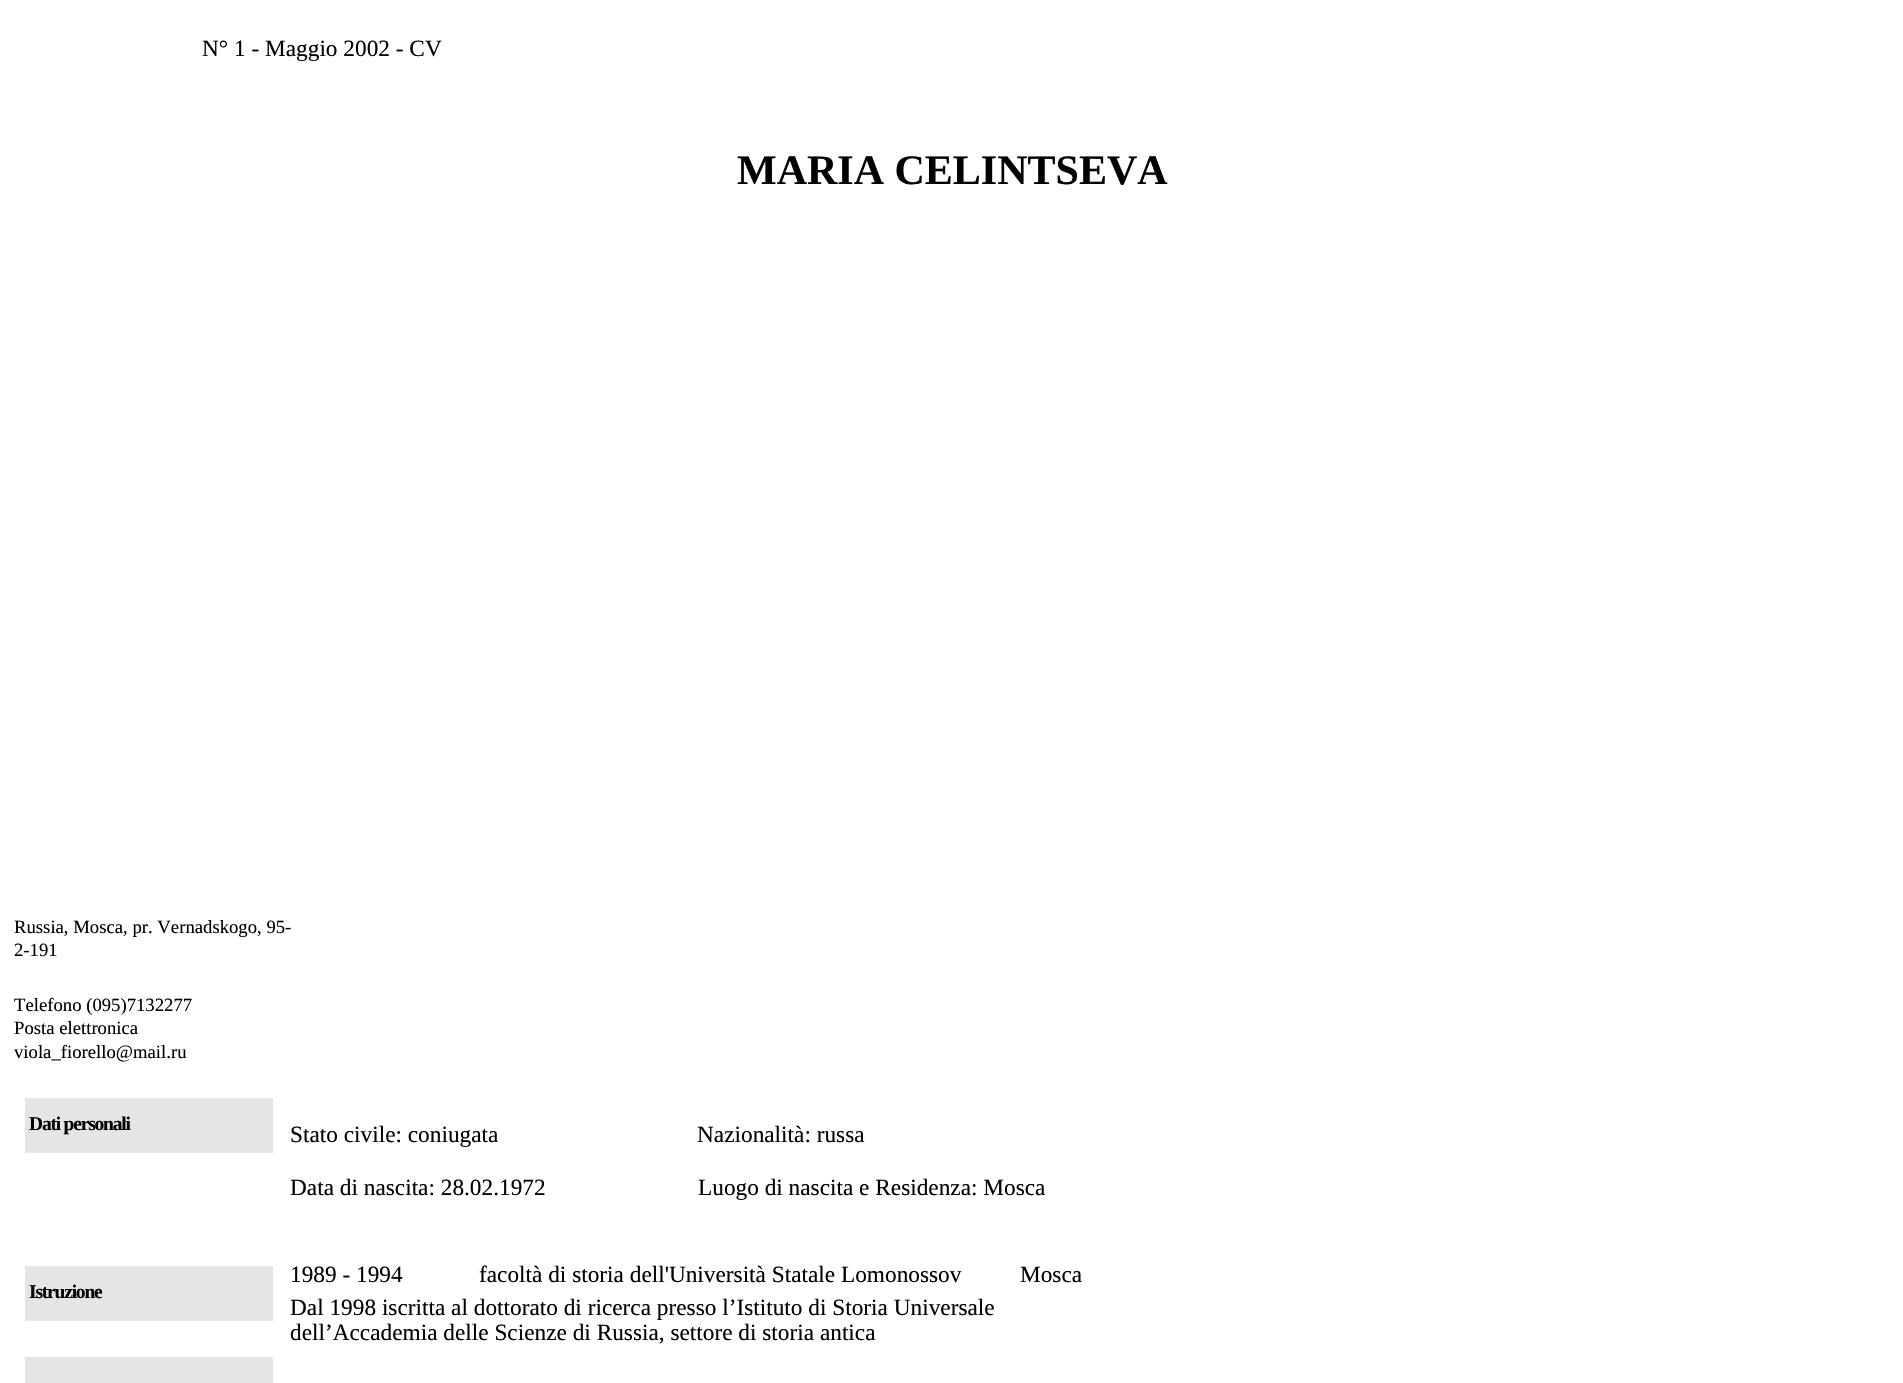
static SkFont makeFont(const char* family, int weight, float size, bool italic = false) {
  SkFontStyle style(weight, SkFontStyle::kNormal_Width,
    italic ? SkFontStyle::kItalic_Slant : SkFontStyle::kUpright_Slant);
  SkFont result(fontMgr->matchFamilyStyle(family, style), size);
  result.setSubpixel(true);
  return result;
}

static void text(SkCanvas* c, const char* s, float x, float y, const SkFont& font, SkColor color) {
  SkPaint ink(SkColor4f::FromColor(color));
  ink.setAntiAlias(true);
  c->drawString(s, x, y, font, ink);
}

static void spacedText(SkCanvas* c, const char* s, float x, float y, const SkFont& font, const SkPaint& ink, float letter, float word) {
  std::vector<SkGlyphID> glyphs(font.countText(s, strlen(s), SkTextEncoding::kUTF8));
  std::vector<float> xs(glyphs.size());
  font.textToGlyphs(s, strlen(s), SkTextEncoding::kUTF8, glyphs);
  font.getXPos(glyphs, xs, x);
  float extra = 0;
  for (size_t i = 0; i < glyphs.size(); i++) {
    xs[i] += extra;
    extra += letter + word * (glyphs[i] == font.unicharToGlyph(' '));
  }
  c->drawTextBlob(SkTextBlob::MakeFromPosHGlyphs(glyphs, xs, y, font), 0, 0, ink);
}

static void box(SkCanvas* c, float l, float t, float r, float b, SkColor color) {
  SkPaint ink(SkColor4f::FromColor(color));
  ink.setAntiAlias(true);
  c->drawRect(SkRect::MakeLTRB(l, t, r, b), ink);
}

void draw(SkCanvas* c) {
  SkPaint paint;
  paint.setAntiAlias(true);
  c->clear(0xffffffff);
  SkFont face1 = makeFont("Liberation Serif", 400, 23.3f);
  text(c, "N° 1 - Maggio 2002 - CV", 202, 56, face1, 0xff000000);
  SkFont face2 = makeFont("Liberation Serif", 700, 42);
  text(c, "MARIA CELINTSEVA", 737, 184, face2, 0xff000000);
  SkFont face3 = makeFont("Liberation Serif", 400, 18.7f);
  text(c, "Russia, Mosca, pr. Vernadskogo, 95-", 14, 933, face3, 0xff000000);
  text(c, "2-191", 14, 956, face3, 0xff000000);
  text(c, "Telefono (095)7132277", 14, 1011, face3, 0xff000000);
  text(c, "Posta elettronica", 14, 1034, face3, 0xff000000);
  text(c, "viola_fiorello@mail.ru", 14, 1058, face3, 0xff000000);
  box(c, 25, 1098, 273, 1153, 0xffe5e5e5);
  SkFont face4 = makeFont("Liberation Serif", 700, 19.5f);
  paint.setColor(0xff000000);
  spacedText(c, "Dati personali", 29, 1130, face4, paint, -1.2f, 0);
  text(c, "Stato civile: coniugata", 290, 1142, face1, 0xff000000);
  text(c, "Nazionalità: russa", 697, 1142, face1, 0xff000000);
  text(c, "Data di nascita: 28.02.1972", 290, 1195, face1, 0xff000000);
  text(c, "Luogo di nascita e Residenza: Mosca", 698, 1195, face1, 0xff000000);
  box(c, 25, 1266, 273, 1321, 0xffe5e5e5);
  spacedText(c, "Istruzione", 29, 1298, face4, paint, -1.2f, 0);
  text(c, "1989 - 1994", 290, 1282, face1, 0xff000000);
  text(c, "facoltà di storia dell'Università Statale Lomonossov", 479, 1282, face1, 0xff000000);
  text(c, "Mosca", 1020, 1282, face1, 0xff000000);
  text(c, "Dal 1998 iscritta al dottorato di ricerca presso l’Istituto di Storia Universale", 290, 1315, face1, 0xff000000);
  text(c, "dell’Accademia delle Scienze di Russia, settore di storia antica", 290, 1340, face1, 0xff000000);
  box(c, 25, 1357, 273, 1383, 0xffe5e5e5);
}
